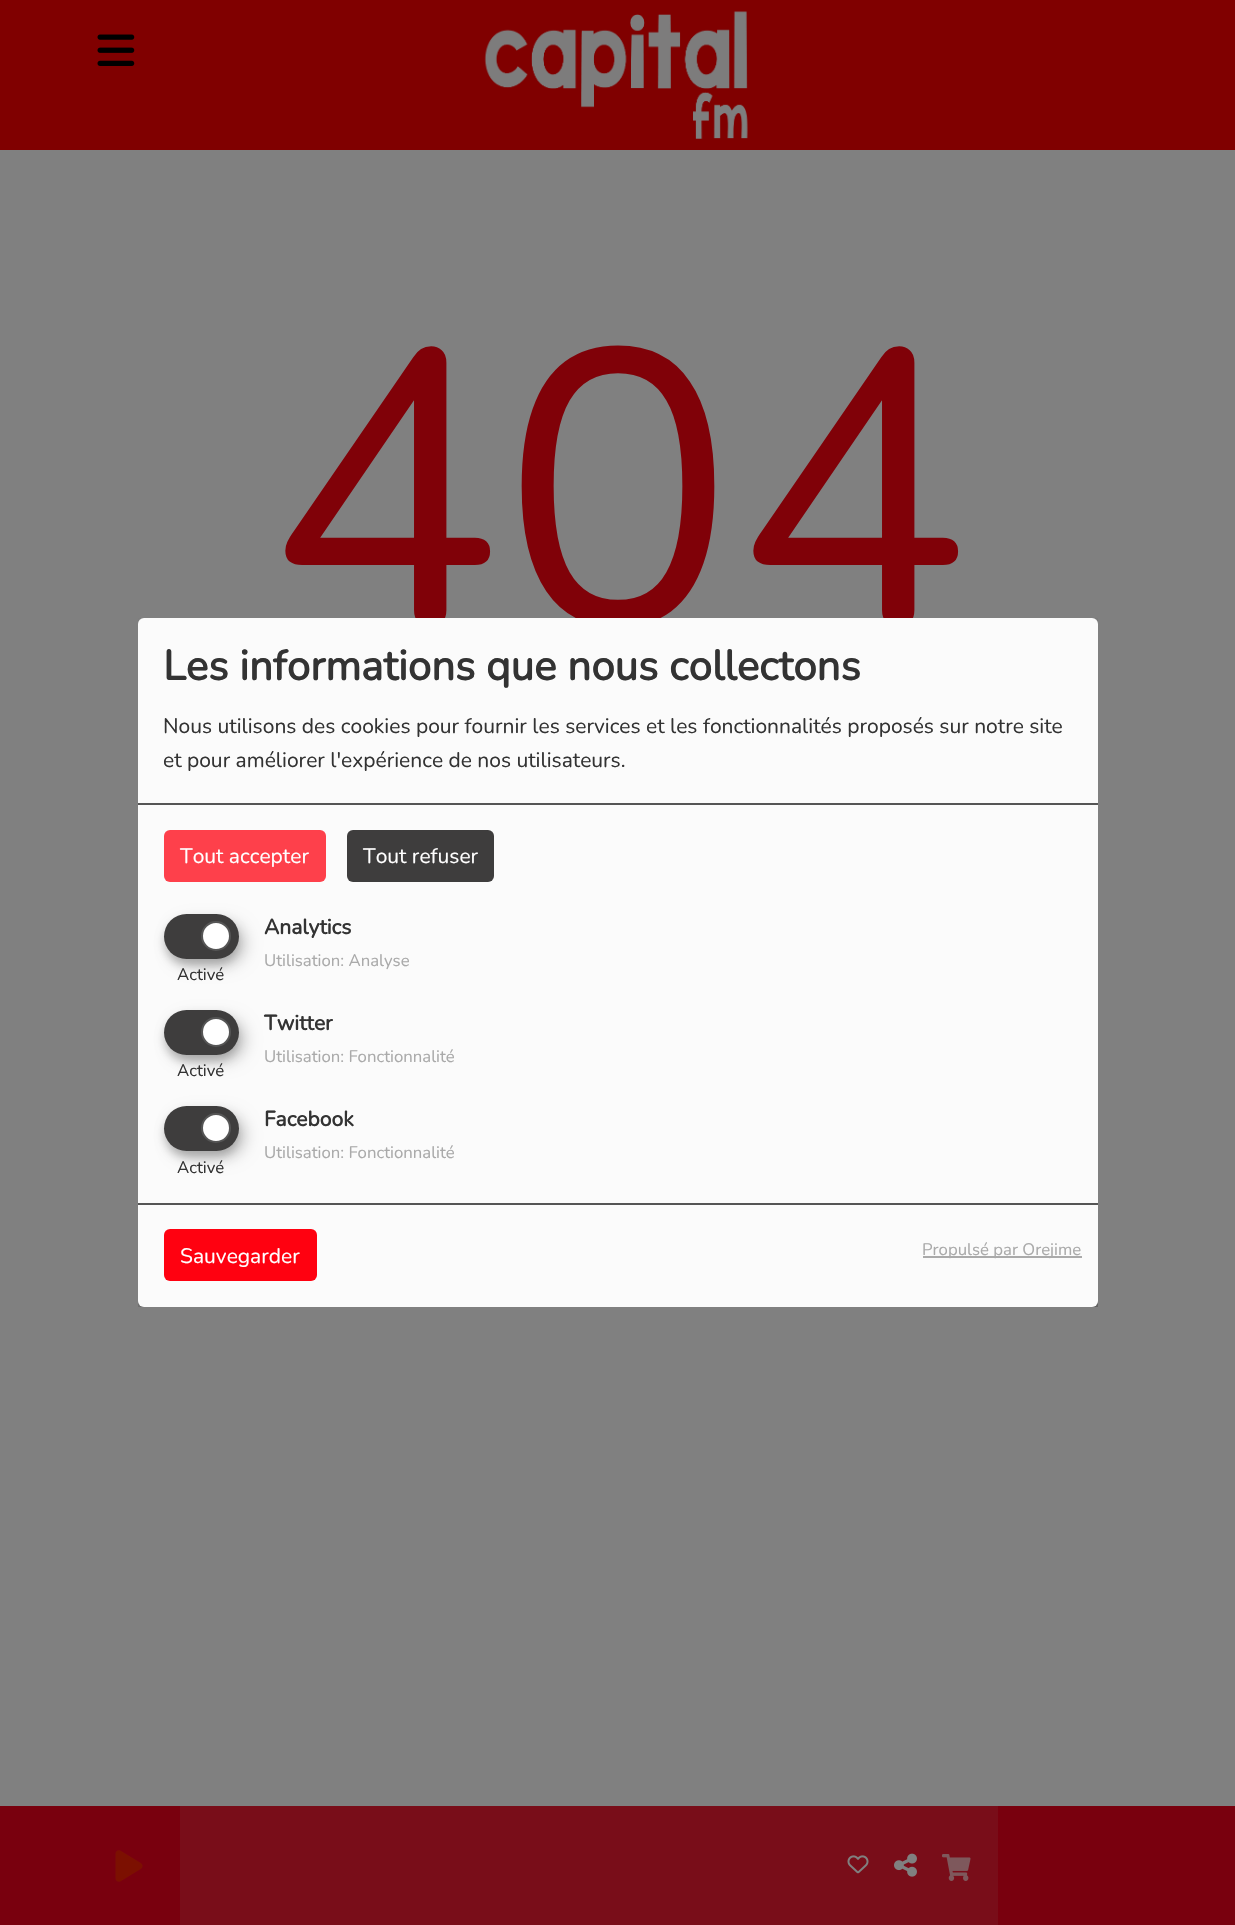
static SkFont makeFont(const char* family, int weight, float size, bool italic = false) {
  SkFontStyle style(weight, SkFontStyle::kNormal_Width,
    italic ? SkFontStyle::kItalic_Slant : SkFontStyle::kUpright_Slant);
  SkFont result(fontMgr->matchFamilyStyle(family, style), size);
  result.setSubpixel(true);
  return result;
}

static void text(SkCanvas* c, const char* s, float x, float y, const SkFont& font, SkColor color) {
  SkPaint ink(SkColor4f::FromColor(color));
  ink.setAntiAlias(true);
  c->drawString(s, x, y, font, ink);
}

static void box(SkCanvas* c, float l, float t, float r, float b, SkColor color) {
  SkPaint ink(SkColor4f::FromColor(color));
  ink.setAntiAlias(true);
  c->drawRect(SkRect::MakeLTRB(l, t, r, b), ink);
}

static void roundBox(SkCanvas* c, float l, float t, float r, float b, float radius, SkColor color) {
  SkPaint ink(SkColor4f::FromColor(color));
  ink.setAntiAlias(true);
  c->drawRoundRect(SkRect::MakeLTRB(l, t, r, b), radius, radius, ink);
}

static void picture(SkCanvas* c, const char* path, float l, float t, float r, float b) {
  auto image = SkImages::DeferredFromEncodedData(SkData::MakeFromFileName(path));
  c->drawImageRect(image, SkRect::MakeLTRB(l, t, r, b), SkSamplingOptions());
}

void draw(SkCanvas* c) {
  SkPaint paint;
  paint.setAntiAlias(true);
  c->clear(0xff808080);
  box(c, 0, 0, 1235, 150, 0xff800000);
  picture(c, "img_01.png", 97, 34, 135, 66);
  picture(c, "img_02.png", 484, 11, 748, 139);
  box(c, 0, 1806, 1235, 1925, 0xff79000e);
  picture(c, "img_03.png", 115, 1850, 143, 1882);
  box(c, 180, 1806, 998, 1925, 0xff790d19);
  picture(c, "img_04.png", 847, 1855, 869, 1874);
  picture(c, "img_05.png", 894, 1853, 917, 1877);
  picture(c, "img_06.png", 942, 1854, 971, 1881);
  SkFont face1 = makeFont("Nunito", 400, 390);
  text(c, "404", 267, 624, face1, 0xff800108);
  c->save();
  c->clipRect(SkRect::MakeLTRB(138, 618, 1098, 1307));
  paint.setColor(0x30000000);
  paint.setMaskFilter(SkMaskFilter::MakeBlur(kNormal_SkBlurStyle, 7.5f));
  c->drawRoundRect(SkRect::MakeLTRB(146, 626, 1106, 1314), 6, 6, paint);
  paint.setMaskFilter(nullptr);
  paint.setColor(0x33000000);
  paint.setMaskFilter(SkMaskFilter::MakeBlur(kNormal_SkBlurStyle, 4.5f));
  c->drawRoundRect(SkRect::MakeLTRB(138, 624, 1098, 1313), 6, 6, paint);
  paint.setMaskFilter(nullptr);
  c->restore();
  roundBox(c, 138, 618, 1098, 1307, 6, 0xfffbfbfb);
  box(c, 138, 803, 1098, 805, 0xff555555);
  SkFont face2 = makeFont("Nunito", 700, 42);
  text(c, "Les informations que nous collectons", 163, 680, face2, 0xff333333);
  SkFont face3 = makeFont("Nunito", 400, 21);
  text(c, "Nous utilisons des cookies pour fournir les services et les fonctionnalités proposés sur notre site", 163, 733, face3, 0xff333333);
  text(c, "et pour améliorer l'expérience de nos utilisateurs.", 163, 767, face3, 0xff333333);
  roundBox(c, 164, 830, 326, 882, 6, 0xfffe404b);
  text(c, "Tout accepter", 180, 863, face3, 0xffffffff);
  roundBox(c, 347, 830, 494, 882, 6, 0xff3e3d3d);
  text(c, "Tout refuser", 363, 863, face3, 0xffffffff);
  SkFont face4 = makeFont("Nunito", 700, 21);
  text(c, "Analytics", 264, 934, face4, 0xff333333);
  paint.setColor(0x30000000);
  paint.setMaskFilter(SkMaskFilter::MakeBlur(kNormal_SkBlurStyle, 7.5f));
  c->drawRoundRect(SkRect::MakeLTRB(171, 921, 246, 966), 22.5f, 22.5f, paint);
  paint.setMaskFilter(nullptr);
  paint.setColor(0x33000000);
  paint.setMaskFilter(SkMaskFilter::MakeBlur(kNormal_SkBlurStyle, 4.5f));
  c->drawRoundRect(SkRect::MakeLTRB(164, 920, 239, 965), 22.5f, 22.5f, paint);
  paint.setMaskFilter(nullptr);
  roundBox(c, 164, 914, 239, 959, 22.5f, 0xff3e3d3d);
  paint.setColor(0xffffffff);
  c->drawCircle(216, 936, 14, paint);
  paint.setStyle(SkPaint::kStroke_Style);
  paint.setStrokeWidth(2);
  paint.setColor(0xff555555);
  c->drawCircle(216, 936, 14, paint);
  SkFont face5 = makeFont("Nunito", 400, 16.75f);
  text(c, "Activé", 177, 980, face5, 0xff333333);
  text(c, "Utilisation: Analyse", 264, 966, face5, 0xffaaaaaa);
  text(c, "Twitter", 264, 1030, face4, 0xff333333);
  paint.setStyle(SkPaint::kFill_Style);
  paint.setColor(0x30000000);
  paint.setMaskFilter(SkMaskFilter::MakeBlur(kNormal_SkBlurStyle, 7.5f));
  c->drawRoundRect(SkRect::MakeLTRB(171, 1017, 246, 1062), 22.5f, 22.5f, paint);
  paint.setMaskFilter(nullptr);
  paint.setColor(0x33000000);
  paint.setMaskFilter(SkMaskFilter::MakeBlur(kNormal_SkBlurStyle, 4.5f));
  c->drawRoundRect(SkRect::MakeLTRB(164, 1016, 239, 1061), 22.5f, 22.5f, paint);
  paint.setMaskFilter(nullptr);
  roundBox(c, 164, 1010, 239, 1055, 22.5f, 0xff3e3d3d);
  paint.setColor(0xffffffff);
  c->drawCircle(216, 1032, 14, paint);
  paint.setStyle(SkPaint::kStroke_Style);
  paint.setColor(0xff555555);
  c->drawCircle(216, 1032, 14, paint);
  text(c, "Activé", 177, 1076, face5, 0xff333333);
  text(c, "Utilisation: Fonctionnalité", 264, 1062, face5, 0xffaaaaaa);
  text(c, "Facebook", 264, 1126, face4, 0xff333333);
  paint.setStyle(SkPaint::kFill_Style);
  paint.setColor(0x30000000);
  paint.setMaskFilter(SkMaskFilter::MakeBlur(kNormal_SkBlurStyle, 7.5f));
  c->drawRoundRect(SkRect::MakeLTRB(171, 1113, 246, 1158), 22.5f, 22.5f, paint);
  paint.setMaskFilter(nullptr);
  paint.setColor(0x33000000);
  paint.setMaskFilter(SkMaskFilter::MakeBlur(kNormal_SkBlurStyle, 4.5f));
  c->drawRoundRect(SkRect::MakeLTRB(164, 1112, 239, 1157), 22.5f, 22.5f, paint);
  paint.setMaskFilter(nullptr);
  roundBox(c, 164, 1106, 239, 1151, 22.5f, 0xff3e3d3d);
  paint.setColor(0xffffffff);
  c->drawCircle(216, 1128, 14, paint);
  paint.setStyle(SkPaint::kStroke_Style);
  paint.setColor(0xff555555);
  c->drawCircle(216, 1128, 14, paint);
  text(c, "Activé", 177, 1173, face5, 0xff333333);
  text(c, "Utilisation: Fonctionnalité", 264, 1158, face5, 0xffaaaaaa);
  box(c, 138, 1203, 1098, 1205, 0xff555555);
  roundBox(c, 164, 1229, 317, 1281, 6, 0xffff0110);
  text(c, "Sauvegarder", 180, 1263, face3, 0xffffffff);
  box(c, 923, 1256, 1082, 1258, 0xffaaaaaa);
  text(c, "Propulsé par Orejime", 922, 1255, face5, 0xffaaaaaa);
}
